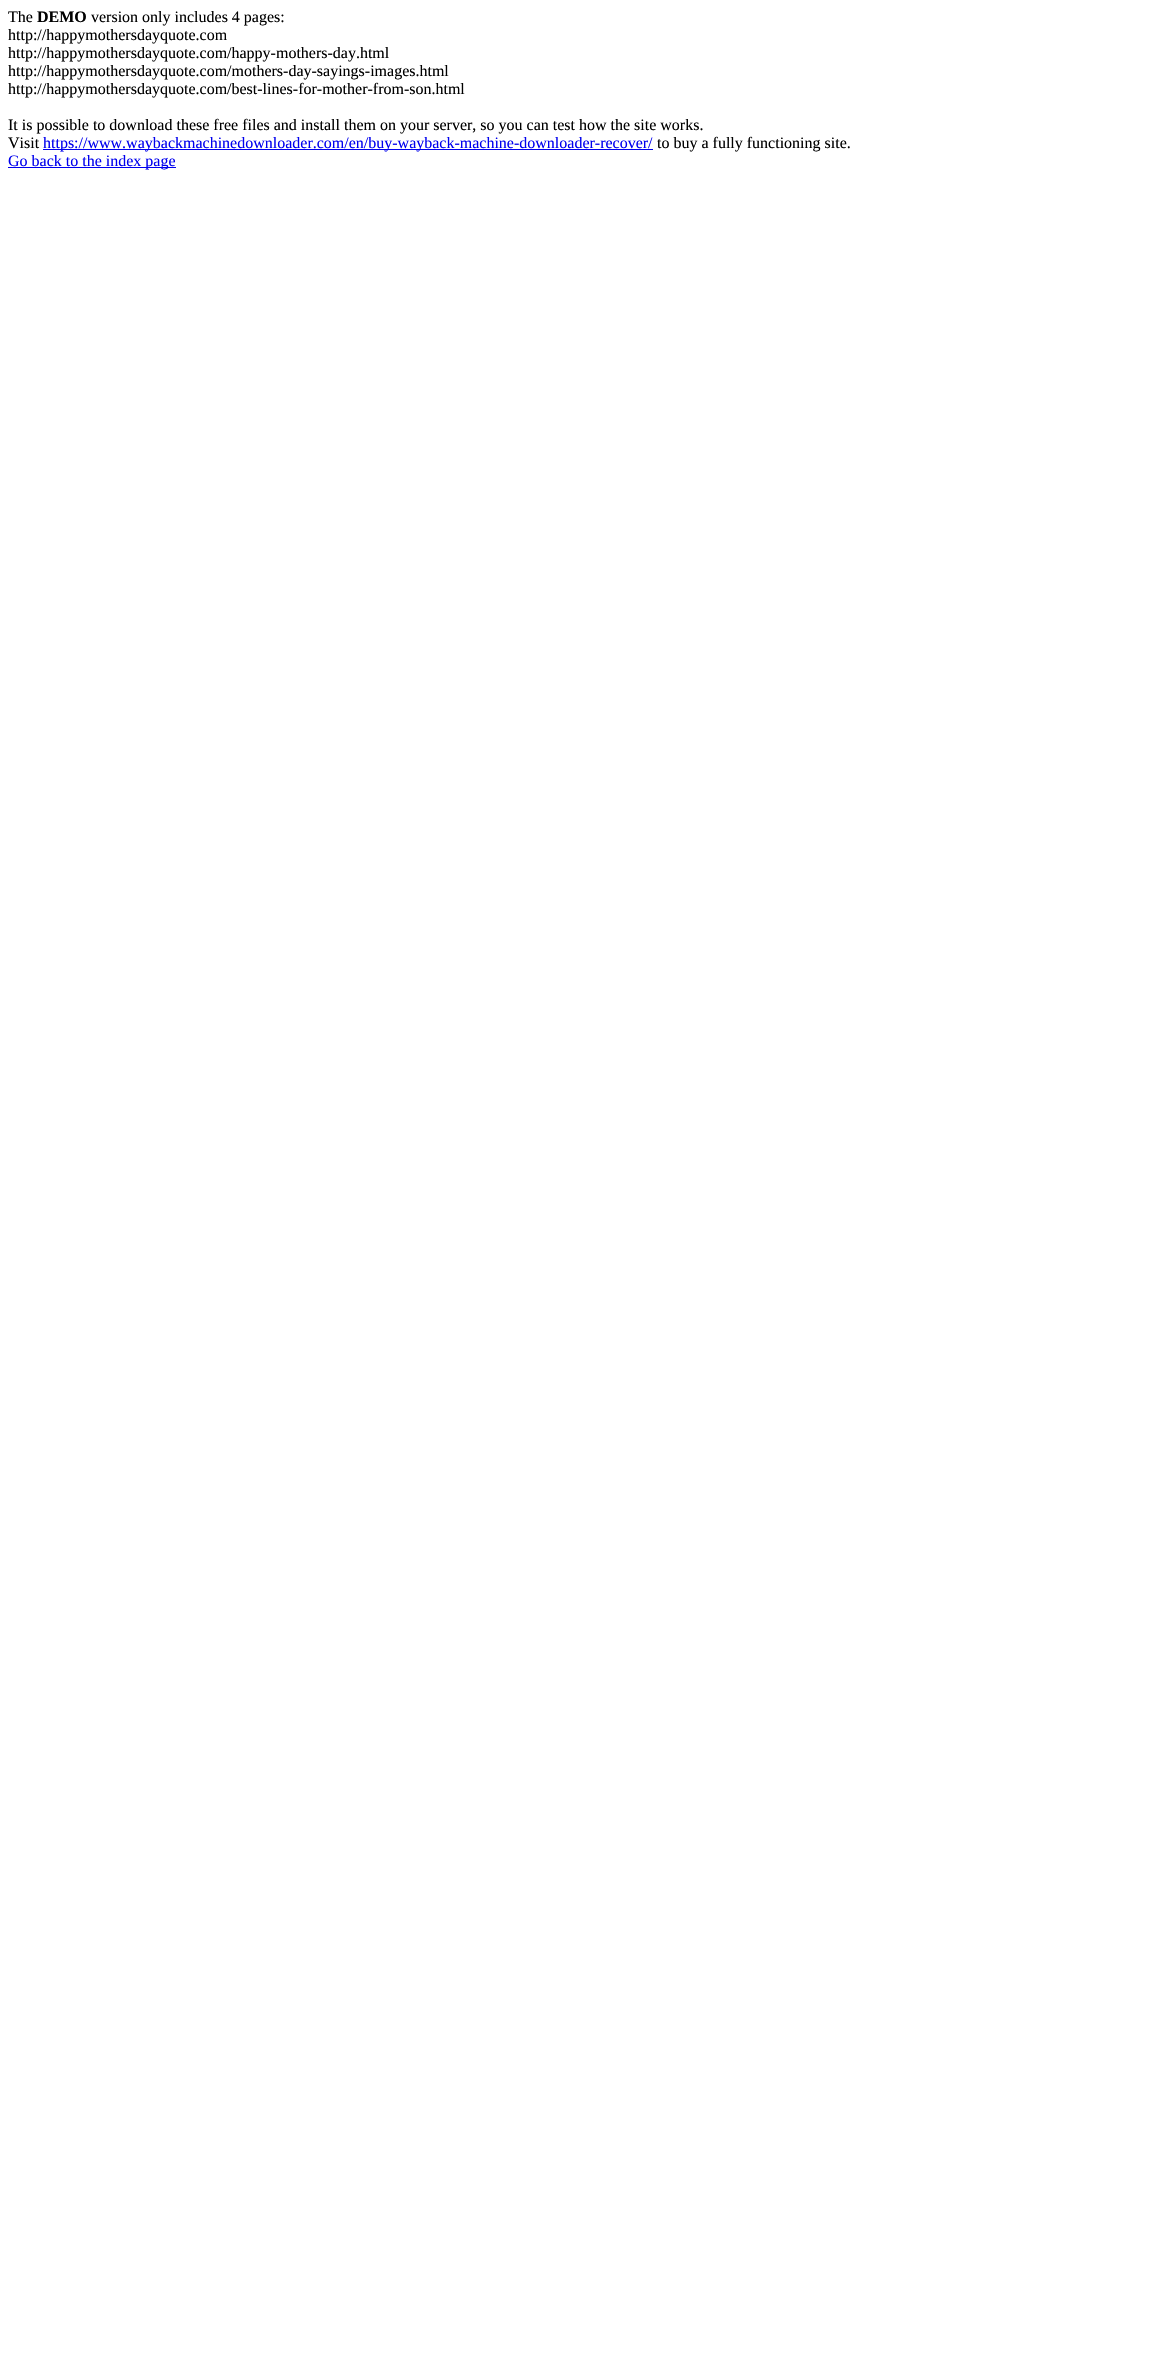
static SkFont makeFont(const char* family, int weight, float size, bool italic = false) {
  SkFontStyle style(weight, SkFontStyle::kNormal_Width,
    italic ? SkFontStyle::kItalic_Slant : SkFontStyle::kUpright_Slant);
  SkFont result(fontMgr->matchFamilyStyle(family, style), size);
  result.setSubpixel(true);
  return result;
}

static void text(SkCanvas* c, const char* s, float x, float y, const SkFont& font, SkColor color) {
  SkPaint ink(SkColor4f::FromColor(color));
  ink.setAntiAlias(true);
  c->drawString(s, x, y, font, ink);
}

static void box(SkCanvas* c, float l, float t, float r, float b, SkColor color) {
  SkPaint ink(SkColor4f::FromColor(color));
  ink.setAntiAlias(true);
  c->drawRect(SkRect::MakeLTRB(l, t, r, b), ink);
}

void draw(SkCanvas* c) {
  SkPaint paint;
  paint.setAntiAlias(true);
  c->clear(0xffffffff);
  SkFont face1 = makeFont("Liberation Serif", 400, 16);
  text(c, "The", 8, 22, face1, 0xff000000);
  SkFont face2 = makeFont("Liberation Serif", 700, 16);
  text(c, "DEMO", 37, 22, face2, 0xff000000);
  text(c, "version only includes 4 pages:", 91, 22, face1, 0xff000000);
  text(c, "http://happymothersdayquote.com", 8, 40, face1, 0xff000000);
  text(c, "http://happymothersdayquote.com/happy-mothers-day.html", 8, 58, face1, 0xff000000);
  text(c, "http://happymothersdayquote.com/mothers-day-sayings-images.html", 8, 76, face1, 0xff000000);
  text(c, "http://happymothersdayquote.com/best-lines-for-mother-from-son.html", 8, 94, face1, 0xff000000);
  text(c, "It is possible to download these free files and install them on your server, so you can test how the site works.", 8, 130, face1, 0xff000000);
  text(c, "Visit", 8, 148, face1, 0xff000000);
  box(c, 43, 149, 653, 150, 0xff0000ee);
  text(c, "https://www.waybackmachinedownloader.com/en/buy-wayback-machine-downloader-recover/", 43, 148, face1, 0xff0000ee);
  text(c, "to buy a fully functioning site.", 657, 148, face1, 0xff000000);
  box(c, 8, 167, 176, 168, 0xff0000ee);
  text(c, "Go back to the index page", 8, 166, face1, 0xff0000ee);
}
